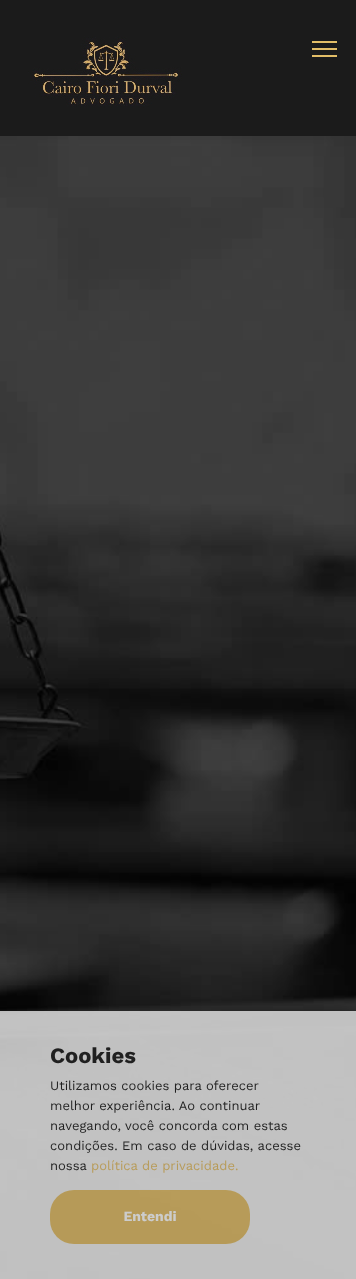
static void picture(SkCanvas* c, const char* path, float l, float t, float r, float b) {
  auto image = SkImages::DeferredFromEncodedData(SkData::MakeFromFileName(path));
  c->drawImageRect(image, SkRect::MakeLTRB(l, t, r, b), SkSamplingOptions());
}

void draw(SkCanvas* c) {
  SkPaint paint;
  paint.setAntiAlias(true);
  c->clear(0xffffffff);
  picture(c, "img_01.png", 0, 0, 356, 1279);
}
